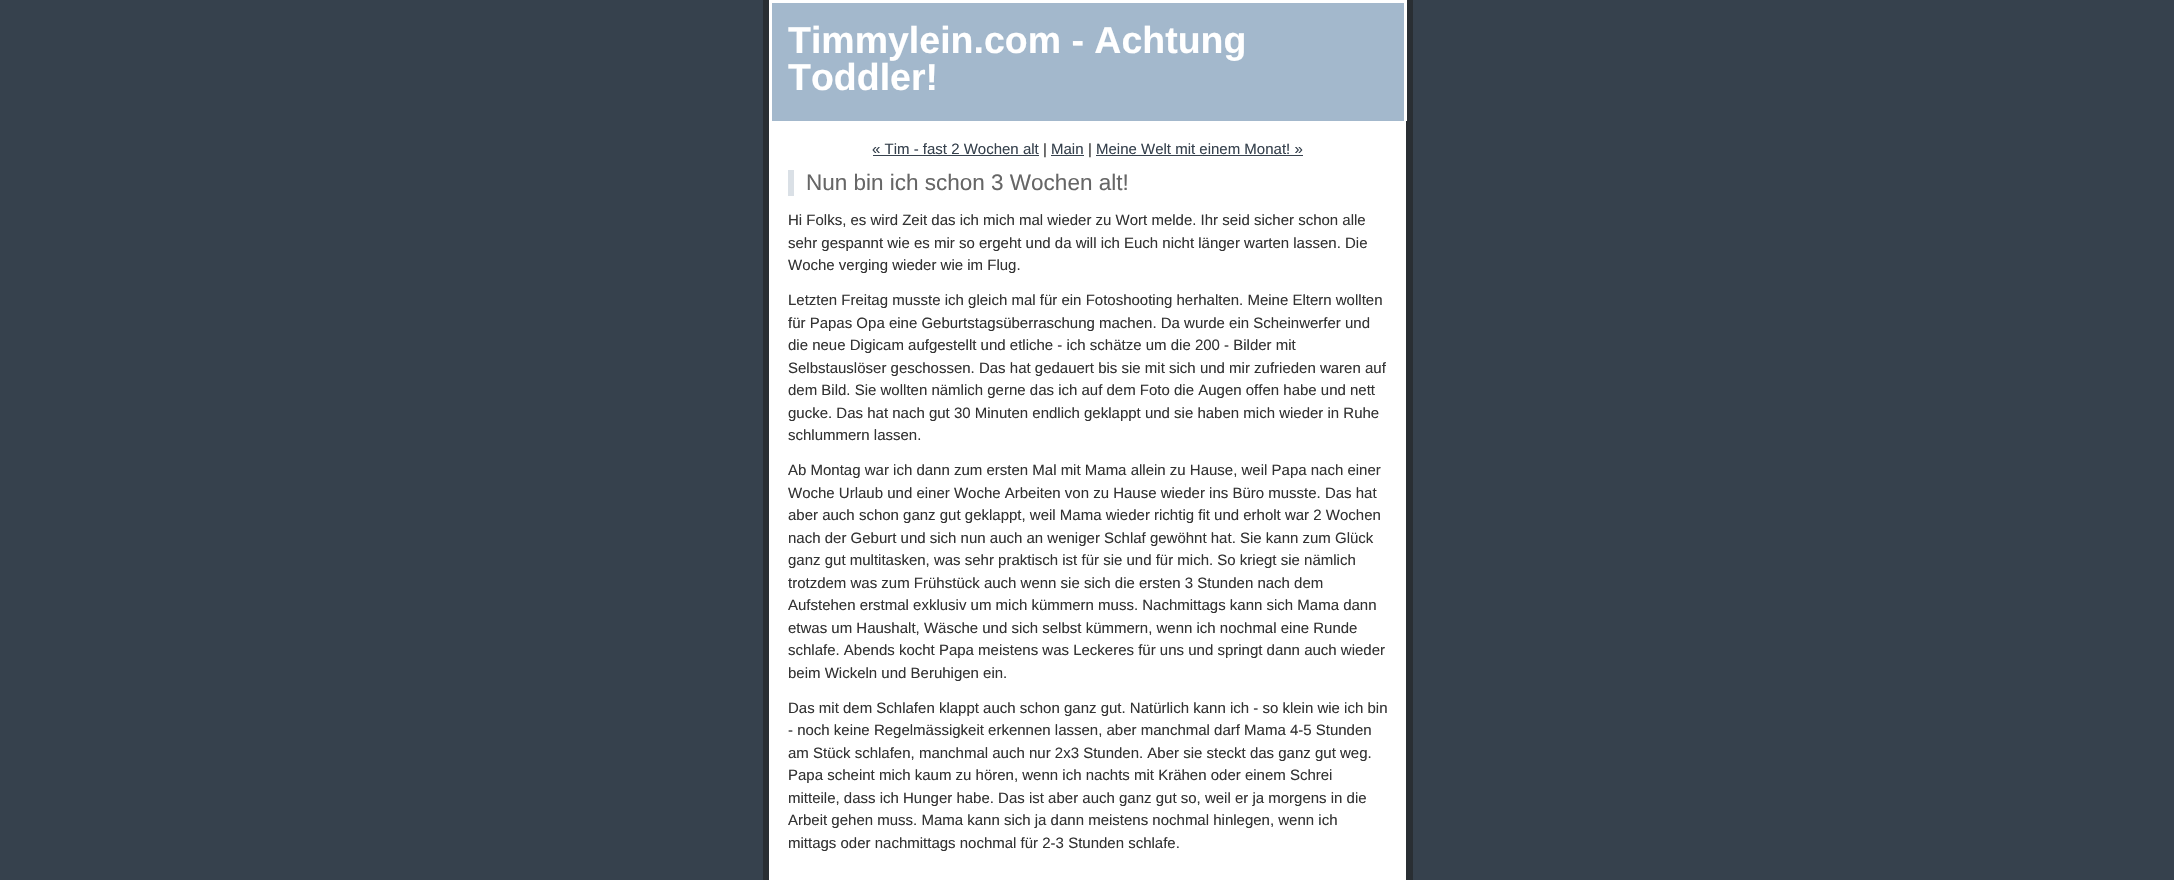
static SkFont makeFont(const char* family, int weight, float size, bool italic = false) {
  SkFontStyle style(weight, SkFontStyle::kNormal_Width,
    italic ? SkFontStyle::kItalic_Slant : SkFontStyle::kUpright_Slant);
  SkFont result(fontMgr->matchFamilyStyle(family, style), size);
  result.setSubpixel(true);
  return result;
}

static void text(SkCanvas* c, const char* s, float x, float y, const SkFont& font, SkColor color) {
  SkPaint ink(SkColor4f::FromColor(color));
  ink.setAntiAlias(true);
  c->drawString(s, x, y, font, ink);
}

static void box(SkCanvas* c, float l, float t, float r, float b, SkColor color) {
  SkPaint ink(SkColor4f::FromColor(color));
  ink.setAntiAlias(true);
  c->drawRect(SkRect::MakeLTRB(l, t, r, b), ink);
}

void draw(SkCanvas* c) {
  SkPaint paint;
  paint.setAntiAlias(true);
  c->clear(0xff36414d);
  box(c, 769, 121, 1406, 880, 0xffffffff);
  box(c, 1406, 0, 1413, 880, 0xff292e33);
  box(c, 763, 0, 769, 880, 0xff292e33);
  box(c, 772, 3, 1404, 121, 0xffa3b8cc);
  box(c, 769, 0, 1406, 3, 0xffffffff);
  box(c, 1404, 0, 1407, 121, 0xffffffff);
  box(c, 769, 0, 772, 121, 0xffffffff);
  SkFont face1 = makeFont("Liberation Sans", 700, 37.5f);
  text(c, "Timmylein.com - Achtung", 788, 53, face1, 0xffffffff);
  text(c, "Toddler!", 788, 90, face1, 0xffffffff);
  SkFont face2 = makeFont("Liberation Sans", 400, 15);
  text(c, "« Tim - fast 2 Wochen alt", 872, 154, face2, 0xff36414d);
  box(c, 873, 155, 1039, 156, 0xff36414d);
  text(c, "|", 1043, 154, face2, 0xff333333);
  text(c, "Main", 1051, 154, face2, 0xff36414d);
  box(c, 1051, 155, 1084, 156, 0xff36414d);
  text(c, "|", 1088, 154, face2, 0xff333333);
  text(c, "Meine Welt mit einem Monat! »", 1096, 154, face2, 0xff36414d);
  box(c, 1096, 155, 1303, 156, 0xff36414d);
  box(c, 788, 170, 794, 196, 0xffdae0e6);
  SkFont face3 = makeFont("Liberation Sans", 400, 22.5f);
  text(c, "Nun bin ich schon 3 Wochen alt!", 806, 190, face3, 0xff666666);
  text(c, "Hi Folks, es wird Zeit das ich mich mal wieder zu Wort melde. Ihr seid sicher schon alle", 788, 225, face2, 0xff333333);
  text(c, "sehr gespannt wie es mir so ergeht und da will ich Euch nicht länger warten lassen. Die", 788, 248, face2, 0xff333333);
  text(c, "Woche verging wieder wie im Flug.", 788, 270, face2, 0xff333333);
  text(c, "Letzten Freitag musste ich gleich mal für ein Fotoshooting herhalten. Meine Eltern wollten", 788, 305, face2, 0xff333333);
  text(c, "für Papas Opa eine Geburtstagsüberraschung machen. Da wurde ein Scheinwerfer und", 788, 328, face2, 0xff333333);
  text(c, "die neue Digicam aufgestellt und etliche - ich schätze um die 200 - Bilder mit", 788, 350, face2, 0xff333333);
  text(c, "Selbstauslöser geschossen. Das hat gedauert bis sie mit sich und mir zufrieden waren auf", 788, 373, face2, 0xff333333);
  text(c, "dem Bild. Sie wollten nämlich gerne das ich auf dem Foto die Augen offen habe und nett", 788, 395, face2, 0xff333333);
  text(c, "gucke. Das hat nach gut 30 Minuten endlich geklappt und sie haben mich wieder in Ruhe", 788, 418, face2, 0xff333333);
  text(c, "schlummern lassen.", 788, 440, face2, 0xff333333);
  text(c, "Ab Montag war ich dann zum ersten Mal mit Mama allein zu Hause, weil Papa nach einer", 788, 475, face2, 0xff333333);
  text(c, "Woche Urlaub und einer Woche Arbeiten von zu Hause wieder ins Büro musste. Das hat", 788, 498, face2, 0xff333333);
  text(c, "aber auch schon ganz gut geklappt, weil Mama wieder richtig fit und erholt war 2 Wochen", 788, 520, face2, 0xff333333);
  text(c, "nach der Geburt und sich nun auch an weniger Schlaf gewöhnt hat. Sie kann zum Glück", 788, 543, face2, 0xff333333);
  text(c, "ganz gut multitasken, was sehr praktisch ist für sie und für mich. So kriegt sie nämlich", 788, 565, face2, 0xff333333);
  text(c, "trotzdem was zum Frühstück auch wenn sie sich die ersten 3 Stunden nach dem", 788, 588, face2, 0xff333333);
  text(c, "Aufstehen erstmal exklusiv um mich kümmern muss. Nachmittags kann sich Mama dann", 788, 610, face2, 0xff333333);
  text(c, "etwas um Haushalt, Wäsche und sich selbst kümmern, wenn ich nochmal eine Runde", 788, 633, face2, 0xff333333);
  text(c, "schlafe. Abends kocht Papa meistens was Leckeres für uns und springt dann auch wieder", 788, 655, face2, 0xff333333);
  text(c, "beim Wickeln und Beruhigen ein.", 788, 678, face2, 0xff333333);
  text(c, "Das mit dem Schlafen klappt auch schon ganz gut. Natürlich kann ich - so klein wie ich bin", 788, 713, face2, 0xff333333);
  text(c, "- noch keine Regelmässigkeit erkennen lassen, aber manchmal darf Mama 4-5 Stunden", 788, 735, face2, 0xff333333);
  text(c, "am Stück schlafen, manchmal auch nur 2x3 Stunden. Aber sie steckt das ganz gut weg.", 788, 758, face2, 0xff333333);
  text(c, "Papa scheint mich kaum zu hören, wenn ich nachts mit Krähen oder einem Schrei", 788, 780, face2, 0xff333333);
  text(c, "mitteile, dass ich Hunger habe. Das ist aber auch ganz gut so, weil er ja morgens in die", 788, 803, face2, 0xff333333);
  text(c, "Arbeit gehen muss. Mama kann sich ja dann meistens nochmal hinlegen, wenn ich", 788, 825, face2, 0xff333333);
  text(c, "mittags oder nachmittags nochmal für 2-3 Stunden schlafe.", 788, 848, face2, 0xff333333);
}
